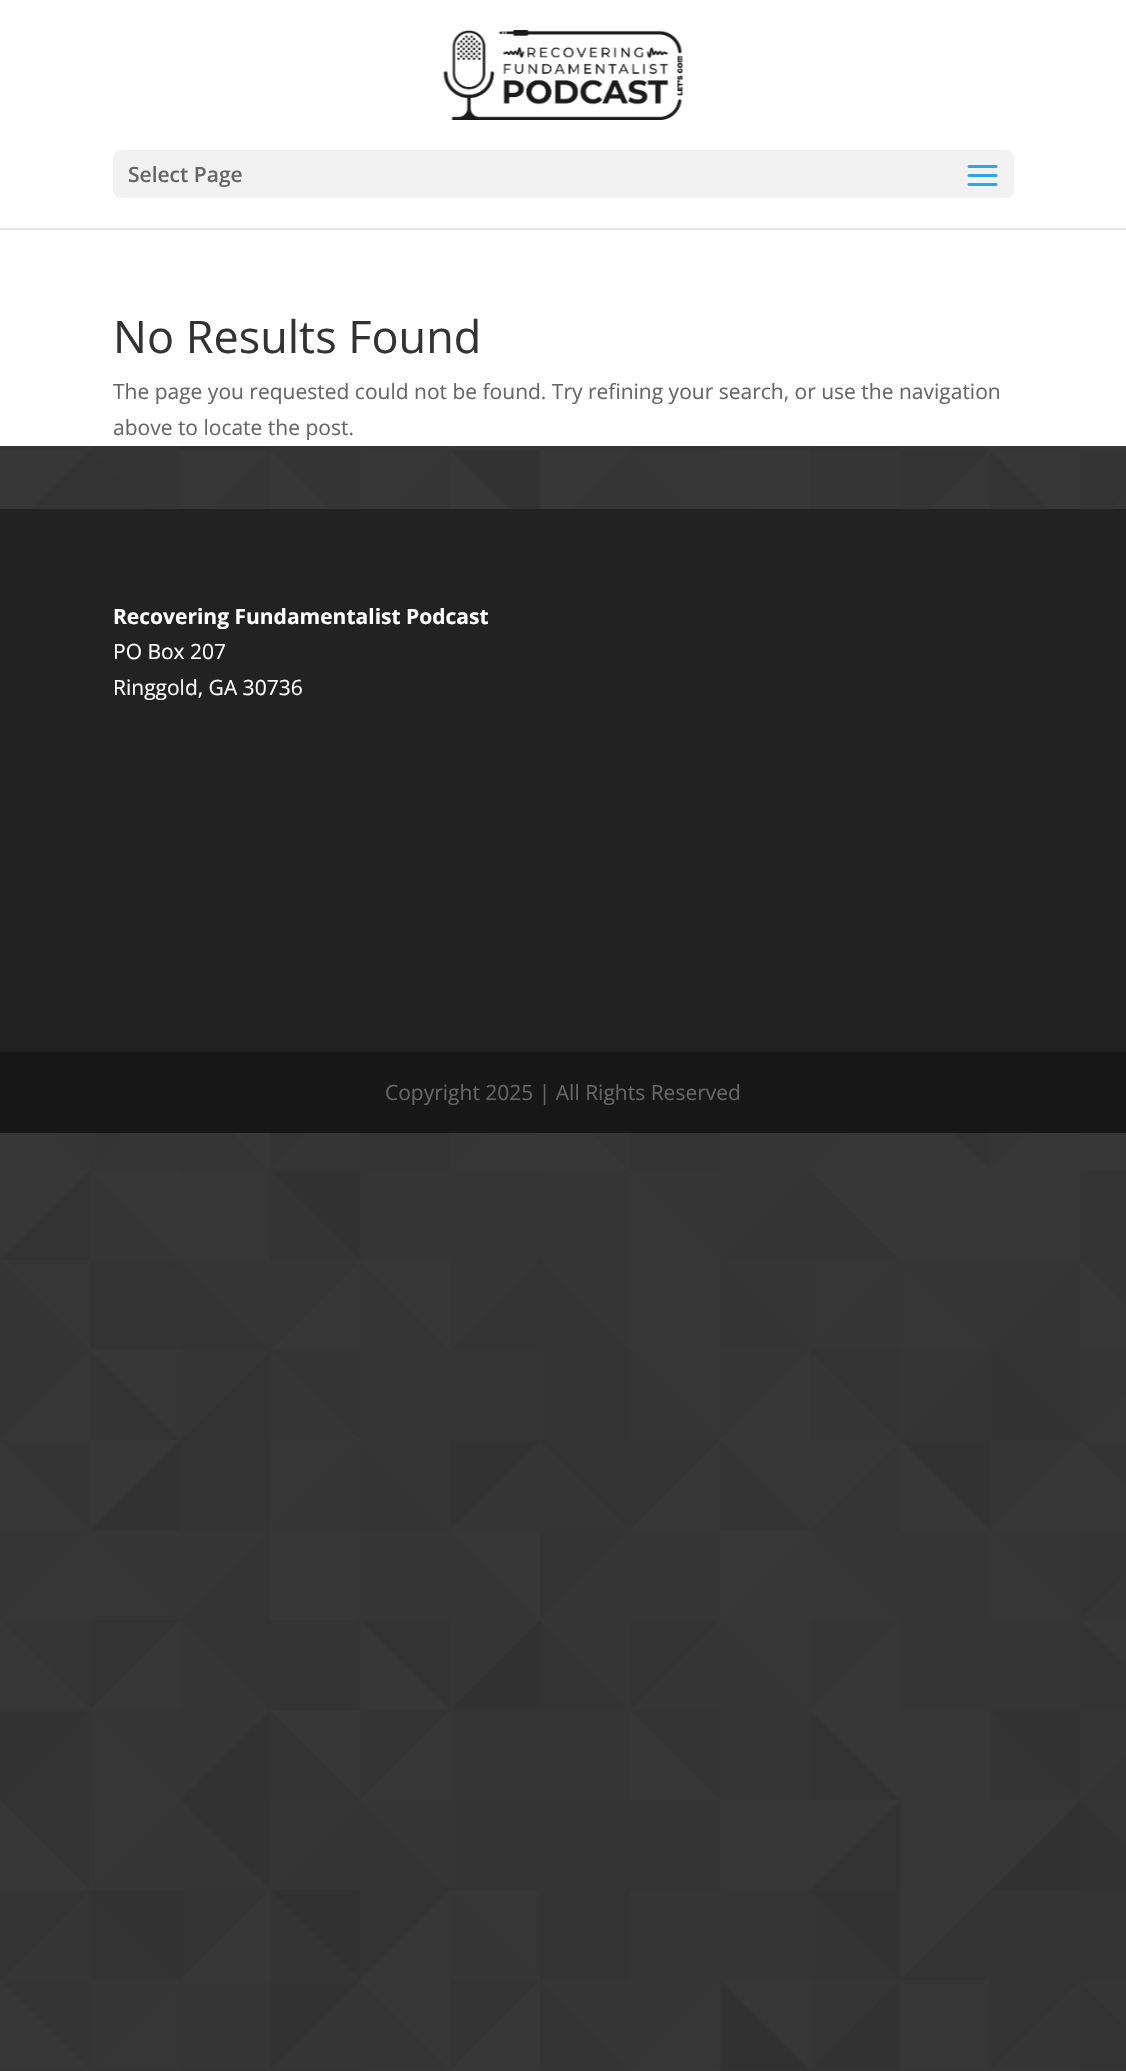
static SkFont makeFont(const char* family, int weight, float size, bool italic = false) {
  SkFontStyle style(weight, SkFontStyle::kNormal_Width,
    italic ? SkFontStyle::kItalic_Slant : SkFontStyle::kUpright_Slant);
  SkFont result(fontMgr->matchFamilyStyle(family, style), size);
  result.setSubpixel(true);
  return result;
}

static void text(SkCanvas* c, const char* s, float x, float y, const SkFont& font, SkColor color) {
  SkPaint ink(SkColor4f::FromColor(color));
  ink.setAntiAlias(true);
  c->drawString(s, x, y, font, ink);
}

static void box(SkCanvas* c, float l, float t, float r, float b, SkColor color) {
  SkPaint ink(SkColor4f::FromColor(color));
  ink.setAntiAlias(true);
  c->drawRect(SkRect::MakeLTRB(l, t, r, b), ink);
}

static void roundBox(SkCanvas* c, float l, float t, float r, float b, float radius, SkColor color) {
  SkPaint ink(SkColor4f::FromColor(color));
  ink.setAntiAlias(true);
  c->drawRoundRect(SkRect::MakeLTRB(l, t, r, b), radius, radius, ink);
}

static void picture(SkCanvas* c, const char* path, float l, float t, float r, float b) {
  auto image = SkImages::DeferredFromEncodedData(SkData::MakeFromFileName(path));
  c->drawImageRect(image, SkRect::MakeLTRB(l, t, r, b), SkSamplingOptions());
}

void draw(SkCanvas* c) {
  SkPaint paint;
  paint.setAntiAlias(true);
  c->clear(0xffffffff);
  picture(c, "img_01.png", 0, 446, 1126, 2071);
  paint.setColor(0xffe6e6e6);
  c->drawPath(SkPathBuilder().moveTo(0, 228).lineTo(0, 230).lineTo(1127, 230).lineTo(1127, 2).lineTo(1126, 2).lineTo(1126, 228).close().detach(), paint);
  picture(c, "img_02.png", 443, 30, 683, 120);
  roundBox(c, 113, 150, 1014, 198, 8, 0xfff2f2f2);
  SkFont face1 = makeFont("Open Sans", 600, 21);
  text(c, "Select Page", 128, 182, face1, 0xff666666);
  picture(c, "img_03.png", 967, 165, 998, 186);
  SkFont face2 = makeFont("Open Sans", 400, 45);
  text(c, "No Results Found", 113, 353, face2, 0xff333333);
  SkFont face3 = makeFont("Open Sans", 400, 21);
  text(c, "The page you requested could not be found. Try refining your search, or use the navigation", 113, 399, face3, 0xff666666);
  text(c, "above to locate the post.", 113, 435, face3, 0xff666666);
  box(c, 0, 509, 1126, 1052, 0xff222222);
  SkFont face4 = makeFont("Open Sans", 700, 21);
  text(c, "Recovering Fundamentalist Podcast", 113, 624, face4, 0xffffffff);
  text(c, "PO Box 207", 113, 659, face3, 0xffffffff);
  text(c, "Ringgold, GA 30736", 113, 695, face3, 0xffffffff);
  box(c, 0, 1052, 1126, 1133, 0xff171717);
  text(c, "Copyright 2025 | All Rights Reserved", 385, 1100, face3, 0xff666666);
}
